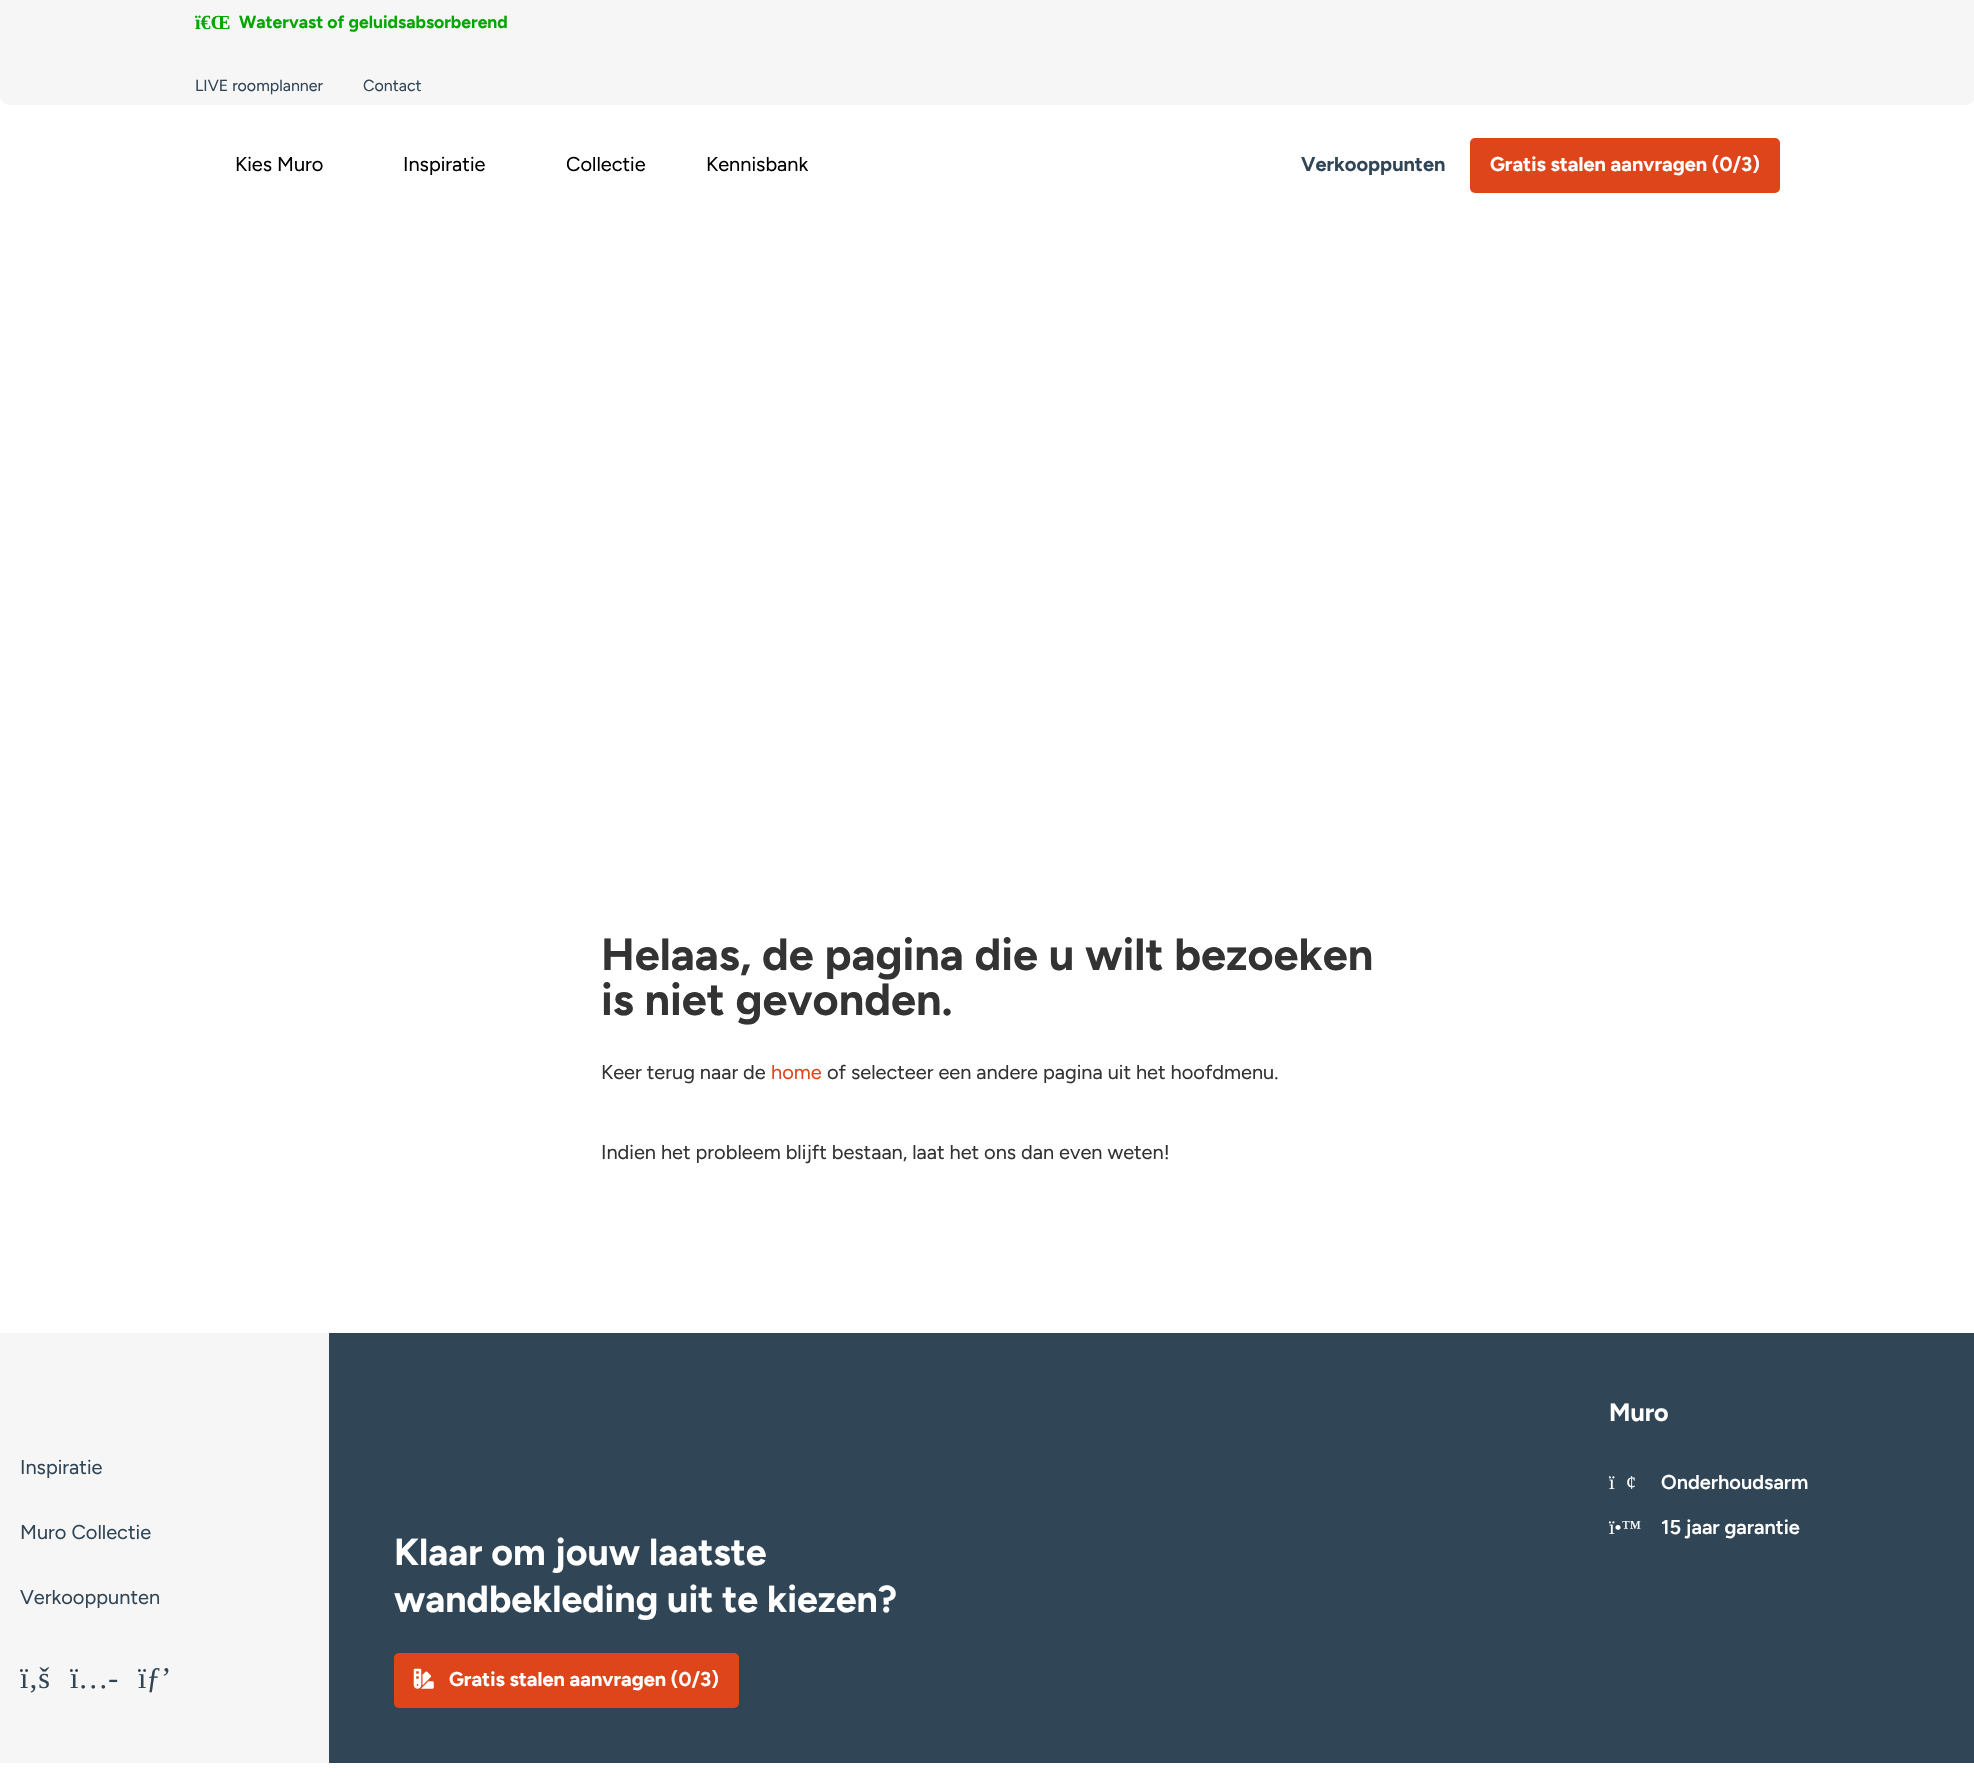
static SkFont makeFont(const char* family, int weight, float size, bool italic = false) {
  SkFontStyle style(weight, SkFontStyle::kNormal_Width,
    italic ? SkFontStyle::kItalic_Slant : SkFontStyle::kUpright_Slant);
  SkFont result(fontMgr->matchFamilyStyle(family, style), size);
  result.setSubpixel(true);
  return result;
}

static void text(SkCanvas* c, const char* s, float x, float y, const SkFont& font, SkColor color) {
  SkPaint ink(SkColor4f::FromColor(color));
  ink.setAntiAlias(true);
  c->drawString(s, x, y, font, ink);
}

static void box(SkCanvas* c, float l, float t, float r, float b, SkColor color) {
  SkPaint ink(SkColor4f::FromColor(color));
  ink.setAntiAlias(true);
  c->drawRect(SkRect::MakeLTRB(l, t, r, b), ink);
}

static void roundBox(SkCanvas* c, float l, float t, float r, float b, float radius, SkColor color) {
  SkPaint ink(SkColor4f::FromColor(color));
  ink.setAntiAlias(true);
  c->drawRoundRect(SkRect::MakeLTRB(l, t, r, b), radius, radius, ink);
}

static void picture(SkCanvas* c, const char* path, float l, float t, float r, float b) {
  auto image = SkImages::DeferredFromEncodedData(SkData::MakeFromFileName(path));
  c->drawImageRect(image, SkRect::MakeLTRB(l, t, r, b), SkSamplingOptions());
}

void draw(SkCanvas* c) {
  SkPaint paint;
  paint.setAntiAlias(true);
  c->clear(0xffffffff);
  paint.setColor(0xfff6f6f6);
  c->drawPath(SkPathBuilder().moveTo(0, 0).lineTo(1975, 0).lineTo(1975, 95).cubicTo(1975, 100.5f, 1970.5f, 105, 1965, 105).lineTo(10, 105).cubicTo(4.5f, 105, 0, 100.5f, 0, 95).close().detach(), paint);
  SkFont face1 = makeFont("Liberation Serif", 700, 20);
  text(c, "ï€Œ", 195, 29, face1, 0xff03a600);
  SkFont face2 = makeFont("Figtree", 700, 17.5f);
  text(c, "Watervast of geluidsabsorberend", 239, 28, face2, 0xff03a600);
  SkFont face3 = makeFont("Figtree", 400, 16);
  text(c, "LIVE roomplanner", 195, 91, face3, 0xff304556);
  text(c, "Contact", 363, 91, face3, 0xff304556);
  SkFont face4 = makeFont("Figtree", 400, 20);
  text(c, "Kies Muro", 235, 171, face4, 0xff000000);
  text(c, "Inspiratie", 403, 171, face4, 0xff000000);
  text(c, "Collectie", 566, 171, face4, 0xff000000);
  text(c, "Kennisbank", 706, 171, face4, 0xff000000);
  SkFont face5 = makeFont("Figtree", 700, 20);
  text(c, "Verkooppunten", 1301, 171, face5, 0xff304556);
  roundBox(c, 1470, 138, 1780, 193, 5, 0xffdf451b);
  text(c, "Gratis stalen aanvragen (0/3)", 1490, 171, face5, 0xffffffff);
  SkFont face6 = makeFont("Figtree", 700, 45);
  text(c, "Helaas, de pagina die u wilt bezoeken", 601, 970, face6, 0xff333333);
  text(c, "is niet gevonden.", 601, 1015, face6, 0xff333333);
  text(c, "Keer terug naar de", 601, 1079, face4, 0xff333333);
  text(c, "home", 771, 1079, face4, 0xffdf451b);
  text(c, "of selecteer een andere pagina uit het hoofdmenu.", 827, 1079, face4, 0xff333333);
  text(c, "Indien het probleem blijft bestaan, laat het ons dan even weten!", 601, 1159, face4, 0xff333333);
  box(c, 0, 1333, 329, 1763, 0xfff6f6f6);
  text(c, "Inspiratie", 20, 1474, face4, 0xff304556);
  text(c, "Muro Collectie", 20, 1539, face4, 0xff304556);
  text(c, "Verkooppunten", 20, 1604, face4, 0xff304556);
  SkFont face7 = makeFont("Liberation Serif", 400, 30);
  text(c, "ï‚š", 20, 1688, face7, 0xff304556);
  text(c, "ï…-", 70, 1688, face7, 0xff304556);
  text(c, "ïƒ’", 138, 1688, face7, 0xff304556);
  box(c, 329, 1333, 1974, 1763, 0xff304556);
  SkFont face8 = makeFont("Figtree", 700, 25);
  text(c, "Muro", 1609, 1421, face8, 0xffffffff);
  SkFont face9 = makeFont("Liberation Serif", 400, 20);
  text(c, "ï", 1609, 1489, face9, 0xffffffff);
  text(c, "¢", 1626, 1489, face9, 0xffffffff);
  SkFont face10 = makeFont("Figtree", 600, 20);
  text(c, "Onderhoudsarm", 1661, 1489, face10, 0xffffffff);
  text(c, "ï•™", 1609, 1534, face9, 0xffffffff);
  text(c, "15 jaar garantie", 1661, 1534, face10, 0xffffffff);
  SkFont face11 = makeFont("Figtree", 700, 37.5f);
  text(c, "Klaar om jouw laatste", 394, 1565, face11, 0xffffffff);
  text(c, "wandbekleding uit te kiezen?", 394, 1612, face11, 0xffffffff);
  roundBox(c, 394, 1653, 739, 1708, 5, 0xffdf451b);
  picture(c, "img_01.png", 413, 1668, 434, 1689);
  text(c, "Gratis stalen aanvragen (0/3)", 449, 1686, face5, 0xffffffff);
}
